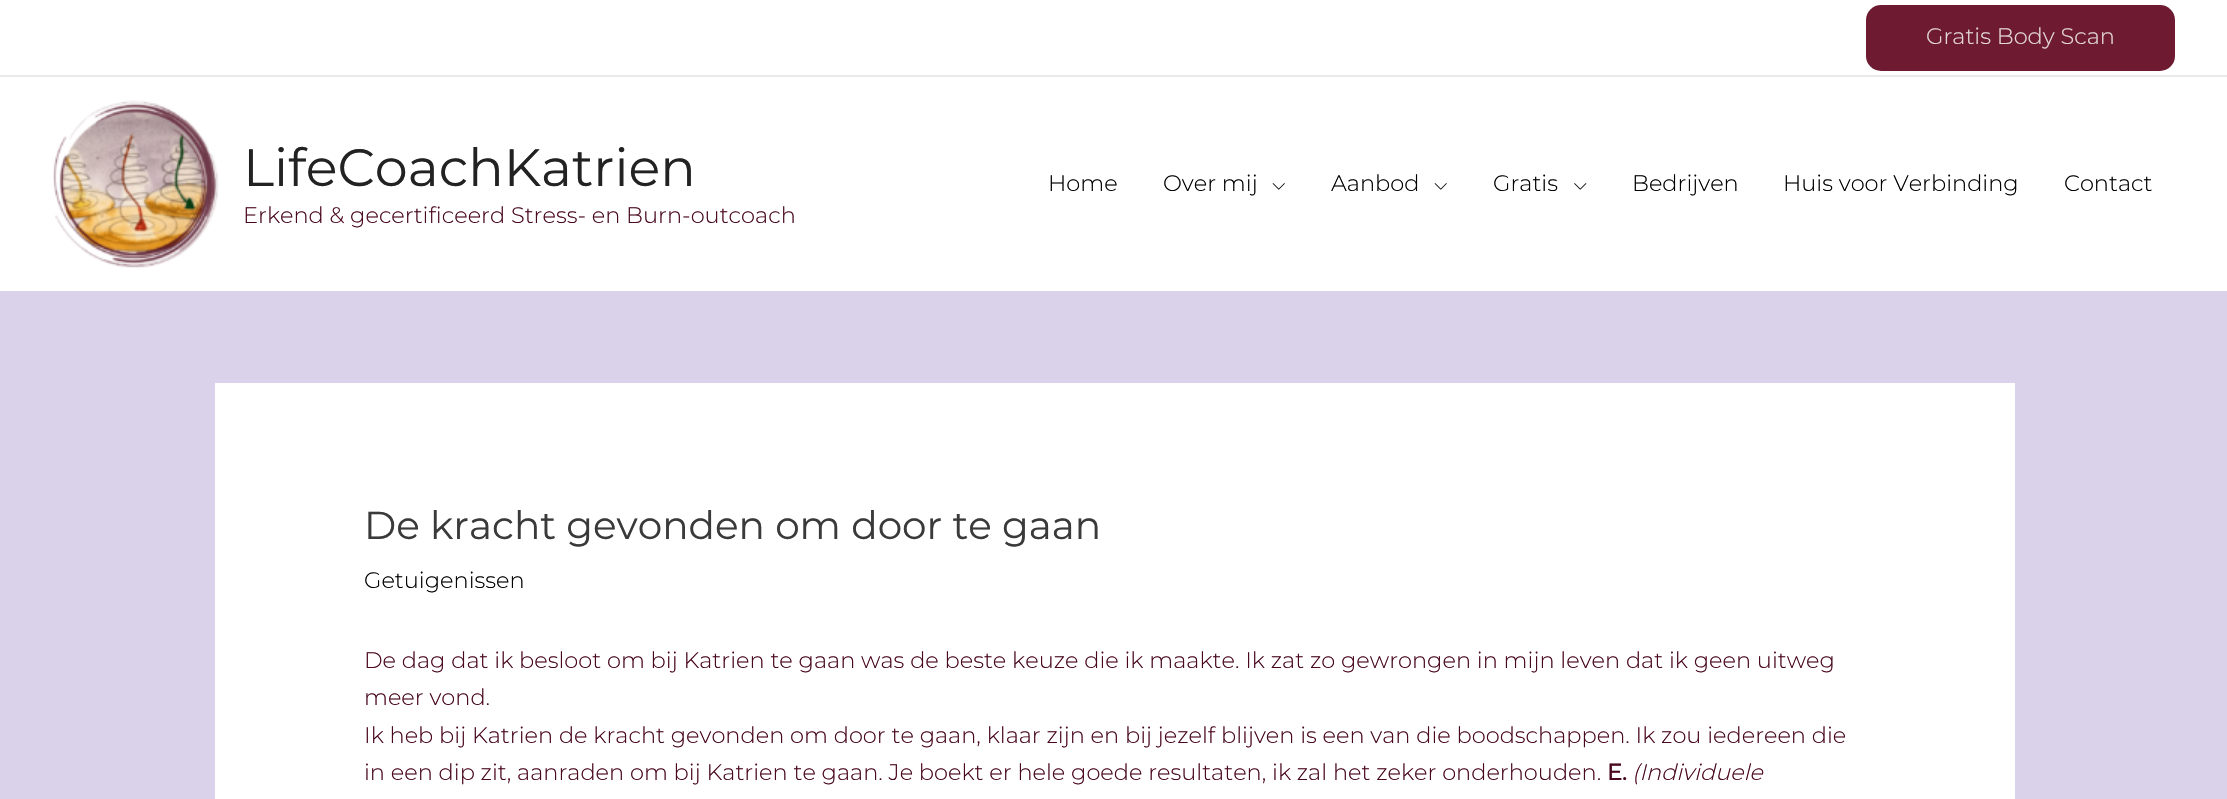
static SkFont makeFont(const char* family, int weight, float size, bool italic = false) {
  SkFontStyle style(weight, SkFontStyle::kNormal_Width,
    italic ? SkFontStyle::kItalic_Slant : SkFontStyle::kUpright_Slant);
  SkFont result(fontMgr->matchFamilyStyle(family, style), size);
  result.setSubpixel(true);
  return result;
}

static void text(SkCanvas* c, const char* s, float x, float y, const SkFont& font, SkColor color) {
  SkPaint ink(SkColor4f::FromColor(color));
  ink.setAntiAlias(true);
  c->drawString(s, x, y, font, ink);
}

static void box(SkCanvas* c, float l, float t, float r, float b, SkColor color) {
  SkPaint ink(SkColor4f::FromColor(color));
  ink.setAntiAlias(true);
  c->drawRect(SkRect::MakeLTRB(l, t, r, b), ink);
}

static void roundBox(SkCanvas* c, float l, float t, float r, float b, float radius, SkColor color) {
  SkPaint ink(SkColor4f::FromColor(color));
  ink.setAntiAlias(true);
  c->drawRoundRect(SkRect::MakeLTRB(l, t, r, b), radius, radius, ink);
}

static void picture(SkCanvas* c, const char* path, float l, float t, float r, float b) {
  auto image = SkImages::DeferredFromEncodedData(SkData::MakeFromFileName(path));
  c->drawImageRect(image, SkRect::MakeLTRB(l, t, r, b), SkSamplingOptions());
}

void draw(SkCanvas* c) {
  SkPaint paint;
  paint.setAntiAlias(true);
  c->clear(0xffd9d2ea);
  box(c, 0, 0, 2227, 75, 0xffffffff);
  box(c, 0, 75, 2227, 77, 0xffeaeaea);
  roundBox(c, 1866, 5, 2175, 71, 15, 0xff6e1b32);
  SkFont face1 = makeFont("Montserrat", 300, 22.5f);
  text(c, "Gratis Body Scan", 1926, 44, face1, 0xffe4d8d8);
  box(c, 0, 77, 2227, 291, 0xffffffff);
  picture(c, "img_01.png", 53, 100, 219, 268);
  SkFont face2 = makeFont("Montserrat", 400, 52.5f);
  text(c, "LifeCoachKatrien", 243, 186, face2, 0xff222222);
  text(c, "Erkend & gecertificeerd Stress- en Burn-outcoach", 243, 223, face1, 0xff4a081e);
  text(c, "Home", 1048, 191, face1, 0xff000000);
  text(c, "Over mij", 1163, 191, face1, 0xff000000);
  picture(c, "img_02.png", 1272, 183, 1285, 190);
  text(c, "Aanbod", 1331, 191, face1, 0xff000000);
  picture(c, "img_02.png", 1434, 183, 1447, 190);
  text(c, "Gratis", 1493, 191, face1, 0xff000000);
  picture(c, "img_03.png", 1574, 183, 1587, 190);
  text(c, "Bedrijven", 1632, 191, face1, 0xff000000);
  text(c, "Huis voor Verbinding", 1783, 191, face1, 0xff000000);
  text(c, "Contact", 2064, 191, face1, 0xff000000);
  box(c, 215, 383, 2015, 799, 0xffffffff);
  SkFont face3 = makeFont("Montserrat", 400, 39);
  text(c, "De kracht gevonden om door te gaan", 364, 539, face3, 0xff3a3a3a);
  text(c, "Getuigenissen", 364, 588, face1, 0xff000000);
  text(c, "De dag dat ik besloot om bij Katrien te gaan was de beste keuze die ik maakte. Ik zat zo gewrongen in mijn leven dat ik geen uitweg", 364, 668, face1, 0xff4a081e);
  text(c, "meer vond.", 364, 705, face1, 0xff4a081e);
  text(c, "Ik heb bij Katrien de kracht gevonden om door te gaan, klaar zijn en bij jezelf blijven is een van die boodschappen. Ik zou iedereen die", 364, 743, face1, 0xff4a081e);
  text(c, "in een dip zit, aanraden om bij Katrien te gaan. Je boekt er hele goede resultaten, ik zal het zeker onderhouden.", 364, 780, face1, 0xff4a081e);
  SkFont face4 = makeFont("Montserrat", 700, 22.5f);
  text(c, "E.", 1607, 780, face4, 0xff4a081e);
  SkFont face5 = makeFont("Montserrat", 300, 22.5f, true);
  text(c, "(Individuele", 1632, 780, face5, 0xff4a081e);
}
